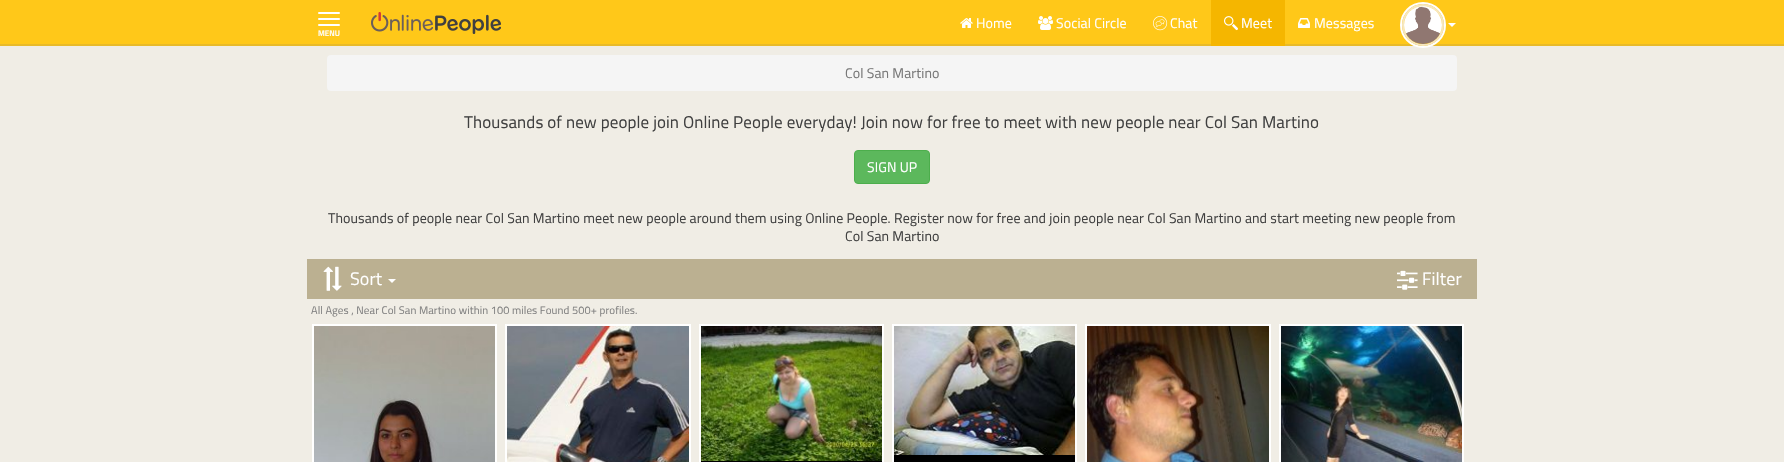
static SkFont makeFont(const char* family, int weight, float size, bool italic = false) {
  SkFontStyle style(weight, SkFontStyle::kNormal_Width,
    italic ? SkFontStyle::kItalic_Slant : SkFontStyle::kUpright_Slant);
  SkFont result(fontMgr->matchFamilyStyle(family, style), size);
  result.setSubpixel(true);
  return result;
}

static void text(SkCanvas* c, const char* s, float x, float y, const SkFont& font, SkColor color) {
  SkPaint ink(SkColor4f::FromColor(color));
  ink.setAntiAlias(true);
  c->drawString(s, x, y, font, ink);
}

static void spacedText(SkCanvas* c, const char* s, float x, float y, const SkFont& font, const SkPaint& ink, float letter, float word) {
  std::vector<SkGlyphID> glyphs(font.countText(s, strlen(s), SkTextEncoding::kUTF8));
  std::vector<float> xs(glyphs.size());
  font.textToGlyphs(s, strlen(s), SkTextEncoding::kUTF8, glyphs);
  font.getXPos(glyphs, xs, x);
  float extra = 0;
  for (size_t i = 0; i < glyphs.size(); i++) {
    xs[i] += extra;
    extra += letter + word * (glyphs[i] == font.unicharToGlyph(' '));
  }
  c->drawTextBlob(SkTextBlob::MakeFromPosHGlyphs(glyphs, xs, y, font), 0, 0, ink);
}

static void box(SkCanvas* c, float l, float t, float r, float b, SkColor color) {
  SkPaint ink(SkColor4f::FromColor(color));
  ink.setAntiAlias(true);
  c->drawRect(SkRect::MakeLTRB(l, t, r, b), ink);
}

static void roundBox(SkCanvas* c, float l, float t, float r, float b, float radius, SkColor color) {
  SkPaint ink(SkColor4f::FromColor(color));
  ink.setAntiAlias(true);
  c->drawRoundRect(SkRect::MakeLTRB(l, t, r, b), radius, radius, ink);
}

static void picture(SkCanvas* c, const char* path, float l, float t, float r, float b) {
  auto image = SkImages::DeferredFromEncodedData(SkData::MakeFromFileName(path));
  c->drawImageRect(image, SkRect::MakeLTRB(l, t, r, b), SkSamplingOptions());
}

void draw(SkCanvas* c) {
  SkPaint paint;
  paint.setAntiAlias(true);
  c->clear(0xfff0ede5);
  box(c, 0, 0, 1784, 44, 0xffffc819);
  box(c, 0, 44, 1784, 46, 0xffe8ba29);
  picture(c, "img_01.png", 960, 18, 973, 28);
  SkFont face1 = makeFont("Titillium Web", 400, 14);
  paint.setColor(0xffffffff);
  spacedText(c, "Home", 976, 28, face1, paint, 0.1f, 0);
  picture(c, "img_02.png", 1038, 16, 1053, 30);
  spacedText(c, "Social Circle", 1056, 28, face1, paint, 0.1f, 0);
  picture(c, "img_03.png", 1153, 16, 1168, 31);
  spacedText(c, "Chat", 1170, 28, face1, paint, 0.1f, 0);
  box(c, 1211, 0, 1285, 46, 0xfff5b600);
  picture(c, "img_04.png", 1224, 16, 1238, 31);
  spacedText(c, "Meet", 1241, 28, face1, paint, 0.1f, 0);
  picture(c, "img_05.png", 1298, 18, 1310, 28);
  spacedText(c, "Messages", 1314, 28, face1, paint, 0.1f, 0);
  paint.setStyle(SkPaint::kStroke_Style);
  paint.setStrokeWidth(2);
  c->drawCircle(1423, 25, 22, paint);
  paint.setColor(0xfff6e7bf);
  c->drawCircle(1423, 25, 20, paint);
  picture(c, "img_06.png", 1404, 6, 1442, 44);
  paint.setStyle(SkPaint::kFill_Style);
  paint.setColor(0xffffffff);
  c->drawPath(SkPathBuilder().moveTo(1448, 23).lineTo(1456, 23).lineTo(1452, 27).close().detach(), paint);
  roundBox(c, 318, 12, 340, 14, 1, 0xffffffff);
  roundBox(c, 318, 18, 340, 20, 1, 0xffffffff);
  roundBox(c, 318, 24, 340, 26, 1, 0xffffffff);
  SkFont face2 = makeFont("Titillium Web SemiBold", 600, 8);
  text(c, "MENU", 318, 36, face2, 0xffffffff);
  picture(c, "img_07.png", 371, 12, 501, 34);
  roundBox(c, 327, 55, 1457, 91, 4, 0xfff5f5f5);
  paint.setColor(0xff777777);
  spacedText(c, "Col San Martino", 845, 78, face1, paint, 0.1f, 0);
  SkFont face3 = makeFont("Titillium Web", 400, 17);
  paint.setColor(0xff404040);
  spacedText(c, "Thousands of new people join Online People everyday! Join now for free to meet with new people near Col San Martino", 464, 128, face3, paint, 0.1f, 0);
  paint.setColor(0xff5cb85c);
  c->drawRoundRect(SkRect::MakeLTRB(854.5f, 150.5f, 929.5f, 183.5f), 3.5f, 3.5f, paint);
  paint.setStyle(SkPaint::kStroke_Style);
  paint.setStrokeWidth(1);
  paint.setColor(0xff4cae4c);
  c->drawRoundRect(SkRect::MakeLTRB(854.5f, 150.5f, 929.5f, 183.5f), 3.5f, 3.5f, paint);
  paint.setStyle(SkPaint::kFill_Style);
  paint.setColor(0xffffffff);
  spacedText(c, "SIGN UP", 867, 172, face1, paint, 0.1f, 0);
  paint.setColor(0xff404040);
  spacedText(c, "Thousands of people near Col San Martino meet new people around them using Online People. Register now for free and join people near Col San Martino and start meeting new people from", 328, 223, face1, paint, 0.1f, 0);
  spacedText(c, "Col San Martino", 845, 241, face1, paint, 0.1f, 0);
  box(c, 307, 259, 1477, 299, 0xffbbb091);
  picture(c, "img_08.png", 323, 266, 342, 291);
  SkFont face4 = makeFont("Titillium Web", 400, 18);
  paint.setColor(0xffffffff);
  spacedText(c, "Sort", 350, 285, face4, paint, 0.1f, 0);
  c->drawPath(SkPathBuilder().moveTo(388, 279).lineTo(396, 279).lineTo(392, 283).close().detach(), paint);
  picture(c, "img_09.png", 1397, 270, 1418, 290);
  spacedText(c, "Filter", 1422, 285, face4, paint, 0.1f, 0);
  SkFont face5 = makeFont("Titillium Web", 400, 11);
  paint.setColor(0xff808080);
  spacedText(c, "All Ages , Near Col San Martino within 100 miles Found 500+ profiles.", 311, 314, face5, paint, 0.1f, 0);
  box(c, 312, 324, 497, 462, 0xffffffff);
  picture(c, "img_10.png", 314, 326, 495, 462);
  box(c, 505, 324, 691, 462, 0xffffffff);
  picture(c, "img_11.png", 507, 326, 689, 462);
  box(c, 699, 324, 884, 462, 0xffffffff);
  box(c, 701, 461, 882, 462, 0xff000000);
  picture(c, "img_12.png", 701, 326, 882, 461);
  box(c, 892, 324, 1077, 462, 0xffffffff);
  box(c, 894, 455, 1075, 462, 0xff000000);
  picture(c, "img_13.png", 894, 326, 1075, 455);
  box(c, 1085, 324, 1271, 462, 0xffffffff);
  picture(c, "img_14.png", 1087, 326, 1269, 462);
  box(c, 1279, 324, 1464, 462, 0xffffffff);
  picture(c, "img_15.png", 1281, 326, 1462, 462);
}
